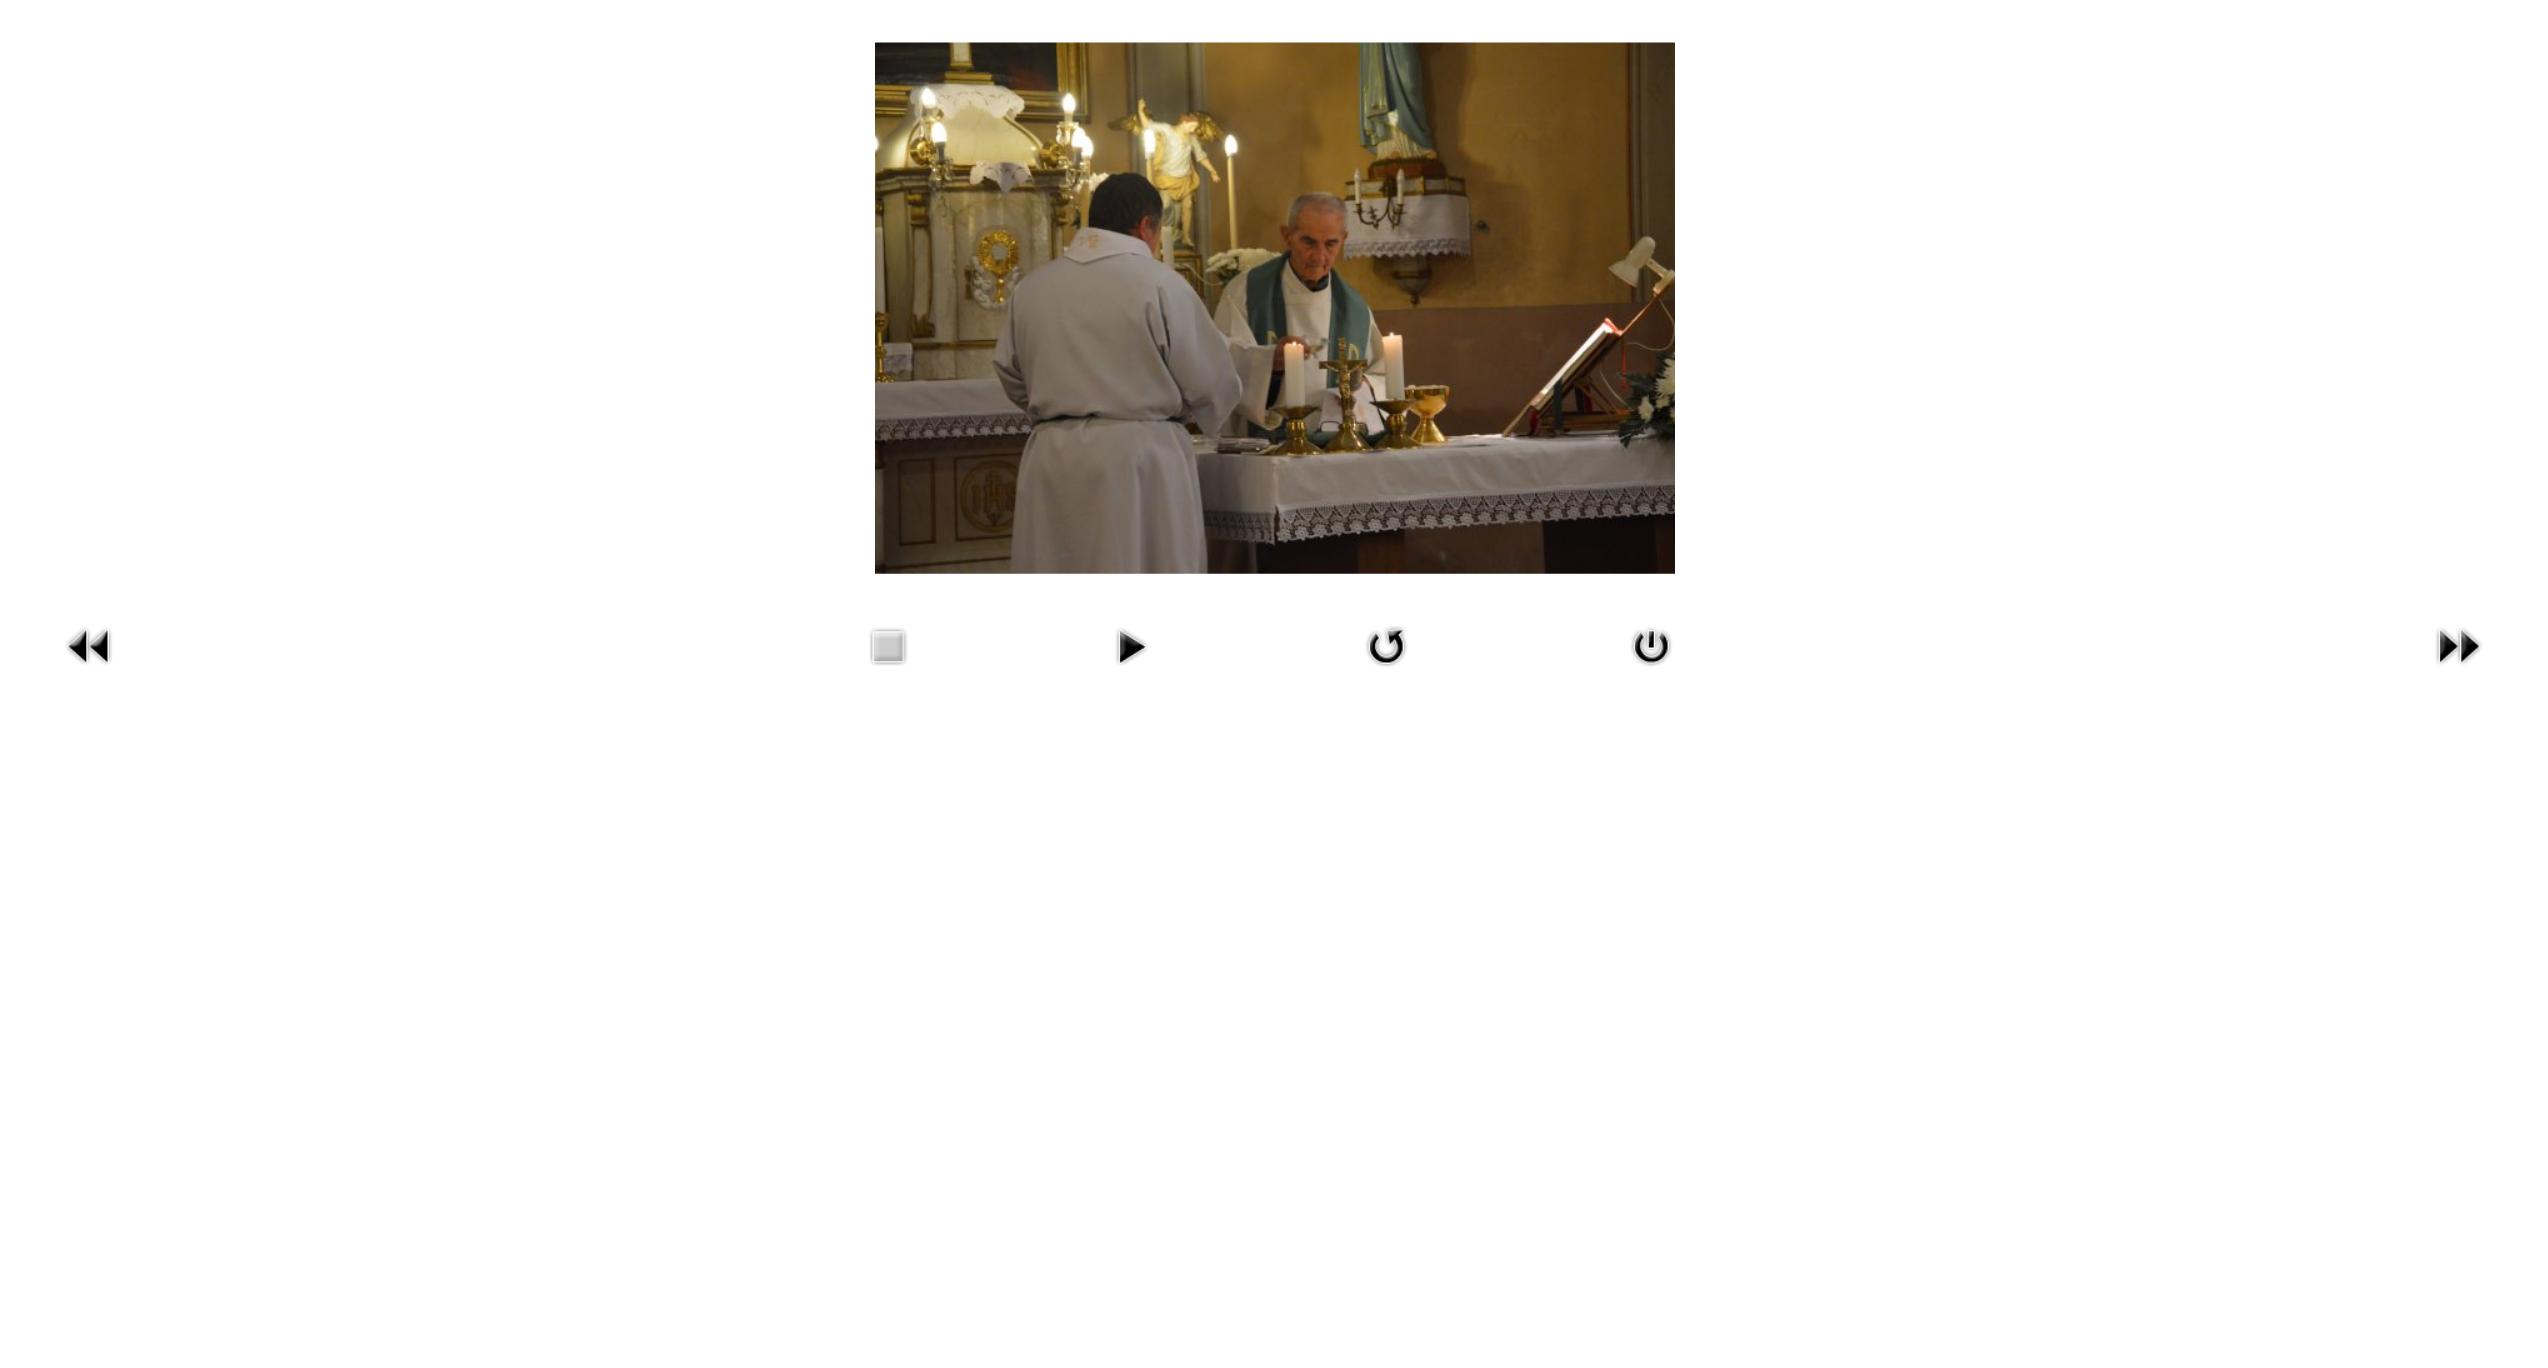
static void picture(SkCanvas* c, const char* path, float l, float t, float r, float b) {
  auto image = SkImages::DeferredFromEncodedData(SkData::MakeFromFileName(path));
  c->drawImageRect(image, SkRect::MakeLTRB(l, t, r, b), SkSamplingOptions());
}

void draw(SkCanvas* c) {
  SkPaint paint;
  paint.setAntiAlias(true);
  c->clear(0xffffffff);
  picture(c, "img_01.png", 875, 42, 1675, 574);
  picture(c, "img_02.png", 65, 627, 113, 666);
  picture(c, "img_03.png", 869, 627, 908, 666);
  picture(c, "img_04.png", 1115, 627, 1149, 666);
  picture(c, "img_05.png", 1365, 626, 1408, 668);
  picture(c, "img_06.png", 1630, 627, 1673, 667);
  picture(c, "img_07.png", 2435, 627, 2483, 666);
}
